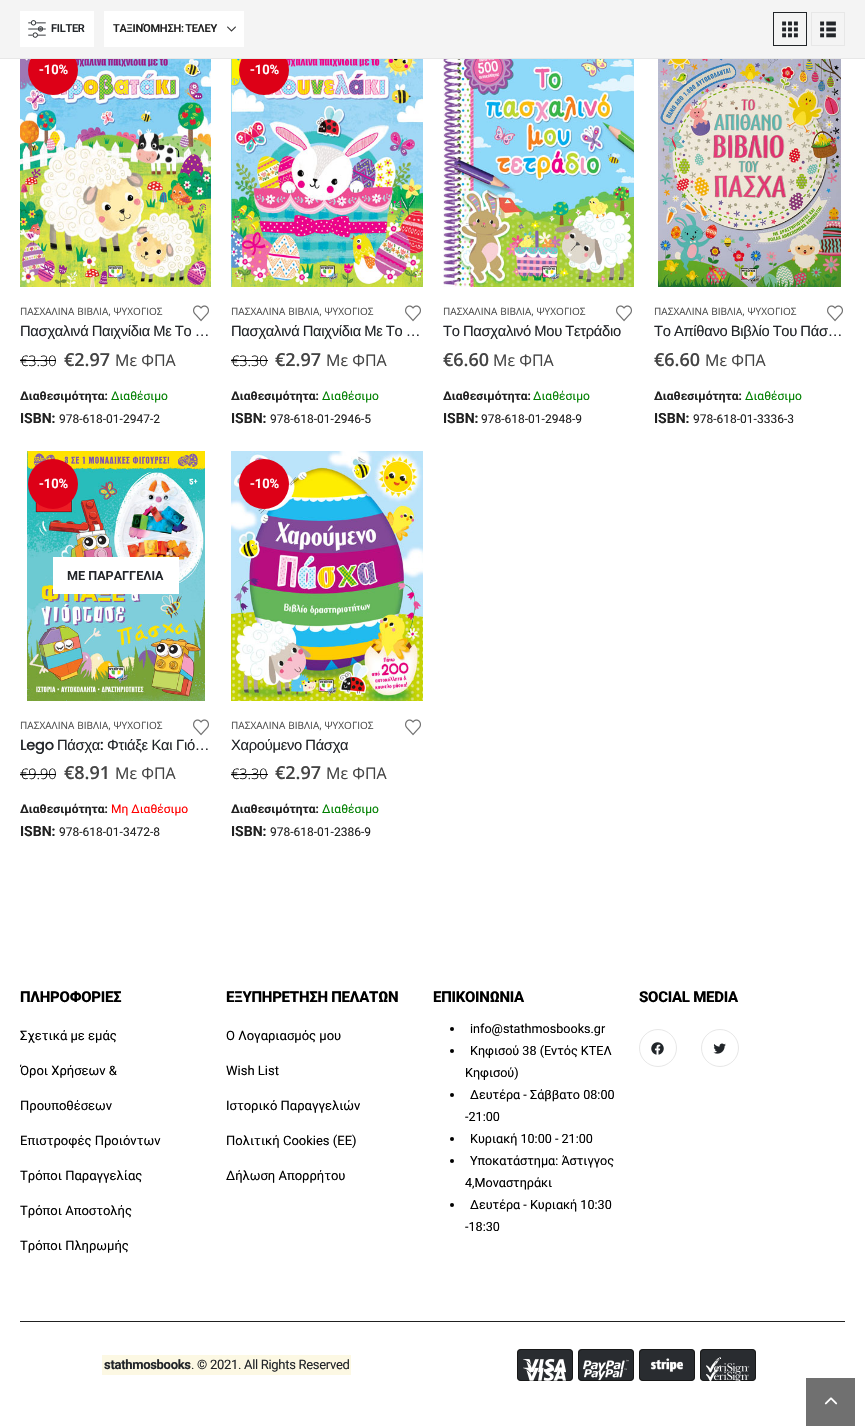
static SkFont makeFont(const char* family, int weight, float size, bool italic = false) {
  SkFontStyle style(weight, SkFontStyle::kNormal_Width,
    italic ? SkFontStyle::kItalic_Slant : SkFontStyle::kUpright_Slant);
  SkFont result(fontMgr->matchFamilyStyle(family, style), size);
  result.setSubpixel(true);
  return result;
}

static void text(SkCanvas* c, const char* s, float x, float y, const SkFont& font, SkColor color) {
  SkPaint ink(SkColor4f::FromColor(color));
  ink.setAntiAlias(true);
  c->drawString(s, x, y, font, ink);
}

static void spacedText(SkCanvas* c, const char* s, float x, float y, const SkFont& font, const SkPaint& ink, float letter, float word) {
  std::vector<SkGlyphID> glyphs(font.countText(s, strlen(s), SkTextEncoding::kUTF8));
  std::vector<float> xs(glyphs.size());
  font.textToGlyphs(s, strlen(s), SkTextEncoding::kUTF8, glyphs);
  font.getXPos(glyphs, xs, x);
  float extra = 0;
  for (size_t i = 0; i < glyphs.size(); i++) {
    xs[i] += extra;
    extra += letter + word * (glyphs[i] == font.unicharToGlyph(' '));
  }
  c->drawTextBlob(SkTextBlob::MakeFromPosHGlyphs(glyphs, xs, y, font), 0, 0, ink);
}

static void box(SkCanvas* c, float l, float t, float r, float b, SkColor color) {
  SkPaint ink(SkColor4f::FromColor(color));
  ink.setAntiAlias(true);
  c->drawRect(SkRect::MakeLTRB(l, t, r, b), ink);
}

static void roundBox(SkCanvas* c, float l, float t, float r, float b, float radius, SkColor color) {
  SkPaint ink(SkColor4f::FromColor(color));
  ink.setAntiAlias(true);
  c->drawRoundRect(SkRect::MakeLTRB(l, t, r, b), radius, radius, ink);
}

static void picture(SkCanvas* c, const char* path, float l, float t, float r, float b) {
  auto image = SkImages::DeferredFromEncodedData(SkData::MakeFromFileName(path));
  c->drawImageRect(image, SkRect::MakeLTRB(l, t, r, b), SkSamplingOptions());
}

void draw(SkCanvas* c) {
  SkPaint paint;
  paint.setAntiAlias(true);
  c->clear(0xffffffff);
  picture(c, "img_05.png", 20, 59, 211, 287);
  paint.setColor(0xffdd0017);
  c->drawCircle(53, 70, 25, paint);
  picture(c, "img_07.png", 231, 59, 423, 287);
  c->drawCircle(264, 70, 25, paint);
  box(c, 0, 0, 865, 58, 0xfff4f4f4);
  box(c, 0, 58, 865, 59, 0xffe7e7e7);
  box(c, 20, 11, 94, 47, 0xffffffff);
  picture(c, "img_01.png", 28, 20, 46, 38);
  SkFont face1 = makeFont("Roboto", 600, 11);
  paint.setColor(0xff222529);
  spacedText(c, "FILTER", 51, 32, face1, paint, -0.25f, 0);
  box(c, 104, 11, 244, 47, 0xffffffff);
  picture(c, "img_02.png", 227, 26, 236, 32);
  paint.setColor(0xff212121);
  spacedText(c, "ΤΑΞΙΝΌΜΗΣΗ: ΤΕΛΕΥ", 113, 32, face1, paint, -0.25f, -1);
  paint.setStyle(SkPaint::kStroke_Style);
  paint.setStrokeWidth(1);
  paint.setColor(0xff222529);
  c->drawRect(SkRect::MakeLTRB(773.5f, 12.5f, 806.5f, 45.5f), paint);
  picture(c, "img_03.png", 782, 21, 798, 38);
  paint.setColor(0xffe7e7e7);
  c->drawRect(SkRect::MakeLTRB(811.5f, 12.5f, 844.5f, 45.5f), paint);
  picture(c, "img_04.png", 820, 21, 836, 38);
  SkFont face2 = makeFont("Roboto", 600, 13);
  text(c, "-10%", 39, 74, face2, 0xffffffff);
  SkFont face3 = makeFont("Open Sans", 400, 10);
  paint.setStyle(SkPaint::kFill_Style);
  paint.setColor(0xff4d4d4d);
  spacedText(c, "ΠΑΣΧΑΛΙΝΑ ΒΙΒΛΙΑ, ΨΥΧΟΓΙΟΣ", 20, 315, face3, paint, 0.05f, 0);
  picture(c, "img_06.png", 193, 305, 209, 322);
  SkFont face4 = makeFont("Liberation Sans", 400, 14.75f);
  paint.setColor(0xff222529);
  spacedText(c, "Πασχαλινά Παιχνίδια Με Το …", 20, 336, face4, paint, -0.3f, -0.5f);
  SkFont face5 = makeFont("Open Sans", 300, 14.5f);
  text(c, "€3.30", 20, 366, face5, 0xff000000);
  box(c, 20, 360, 56, 361, 0xff000000);
  SkFont face6 = makeFont("Open Sans", 600, 18);
  text(c, "€2.97", 64, 366, face6, 0xff444444);
  SkFont face7 = makeFont("Open Sans", 400, 16);
  text(c, "Με ΦΠΑ", 115, 366, face7, 0xff444444);
  SkFont face8 = makeFont("Roboto", 700, 12);
  text(c, "Διαθεσιμότητα:", 20, 400, face8, 0xff212121);
  SkFont face9 = makeFont("Roboto", 400, 12);
  text(c, "Διαθέσιμο", 111, 400, face9, 0xff008000);
  SkFont face10 = makeFont("Roboto", 700, 14);
  text(c, "ISBN:", 20, 423, face10, 0xff212121);
  text(c, "978-618-01-2947-2", 59, 423, face9, 0xff212121);
  text(c, "-10%", 250, 74, face2, 0xffffffff);
  paint.setColor(0xff4d4d4d);
  spacedText(c, "ΠΑΣΧΑΛΙΝΑ ΒΙΒΛΙΑ, ΨΥΧΟΓΙΟΣ", 231, 315, face3, paint, 0.05f, 0);
  picture(c, "img_06.png", 405, 305, 421, 322);
  paint.setColor(0xff222529);
  spacedText(c, "Πασχαλινά Παιχνίδια Με Το …", 231, 336, face4, paint, -0.3f, -0.5f);
  text(c, "€3.30", 231, 366, face5, 0xff000000);
  box(c, 231, 360, 268, 361, 0xff000000);
  text(c, "€2.97", 275, 366, face6, 0xff444444);
  text(c, "Με ΦΠΑ", 326, 366, face7, 0xff444444);
  text(c, "Διαθεσιμότητα:", 231, 400, face8, 0xff212121);
  text(c, "Διαθέσιμο", 322, 400, face9, 0xff008000);
  text(c, "ISBN:", 231, 423, face10, 0xff212121);
  text(c, "978-618-01-2946-5", 270, 423, face9, 0xff212121);
  picture(c, "img_08.png", 443, 59, 634, 287);
  paint.setColor(0xff4d4d4d);
  spacedText(c, "ΠΑΣΧΑΛΙΝΑ ΒΙΒΛΙΑ, ΨΥΧΟΓΙΟΣ", 443, 315, face3, paint, 0.05f, 0);
  picture(c, "img_06.png", 616, 305, 632, 322);
  paint.setColor(0xff222529);
  spacedText(c, "Το Πασχαλινό Μου Τετράδιο", 443, 336, face4, paint, -0.3f, -0.5f);
  text(c, "€6.60", 443, 366, face6, 0xff444444);
  text(c, "Με ΦΠΑ", 493, 366, face7, 0xff444444);
  text(c, "Διαθεσιμότητα:", 443, 400, face8, 0xff212121);
  text(c, "Διαθέσιμο", 533, 400, face9, 0xff008000);
  text(c, "ISBN:", 443, 423, face10, 0xff212121);
  text(c, "978-618-01-2948-9", 481, 423, face9, 0xff212121);
  picture(c, "img_09.png", 658, 59, 841, 287);
  paint.setColor(0xff4d4d4d);
  spacedText(c, "ΠΑΣΧΑΛΙΝΑ ΒΙΒΛΙΑ, ΨΥΧΟΓΙΟΣ", 654, 315, face3, paint, 0.05f, 0);
  picture(c, "img_06.png", 827, 305, 843, 322);
  paint.setColor(0xff222529);
  spacedText(c, "Το Απίθανο Βιβλίο Του Πάσ…", 654, 336, face4, paint, -0.3f, -0.5f);
  text(c, "€6.60", 654, 366, face6, 0xff444444);
  text(c, "Με ΦΠΑ", 705, 366, face7, 0xff444444);
  text(c, "Διαθεσιμότητα:", 654, 400, face8, 0xff212121);
  text(c, "Διαθέσιμο", 745, 400, face9, 0xff008000);
  text(c, "ISBN:", 654, 423, face10, 0xff212121);
  text(c, "978-618-01-3336-3", 693, 423, face9, 0xff212121);
  picture(c, "img_10.png", 27, 451, 205, 701);
  paint.setColor(0xffdd0017);
  c->drawCircle(53, 484, 25, paint);
  text(c, "-10%", 39, 488, face2, 0xffffffff);
  box(c, 53, 557, 179, 594, 0xffffffff);
  SkFont face11 = makeFont("Roboto", 600, 12.6f);
  text(c, "ΜΕ ΠΑΡΑΓΓΕΛΙΑ", 67, 580, face11, 0xff222529);
  paint.setColor(0xff4d4d4d);
  spacedText(c, "ΠΑΣΧΑΛΙΝΑ ΒΙΒΛΙΑ, ΨΥΧΟΓΙΟΣ", 20, 729, face3, paint, 0.05f, 0);
  picture(c, "img_06.png", 193, 719, 209, 736);
  SkFont face12 = makeFont("Poppins", 500, 14.75f);
  paint.setColor(0xff222529);
  spacedText(c, "Lego", 20, 750, face12, paint, -0.3f, 0);
  spacedText(c, "Πάσχα", 57, 750, face4, paint, -0.3f, 0);
  spacedText(c, ":", 100, 750, face12, paint, -0.3f, 0);
  spacedText(c, "Φτιάξε Και Γιό…", 107, 750, face4, paint, -0.3f, 0);
  text(c, "€9.90", 20, 779, face5, 0xff000000);
  box(c, 20, 774, 56, 775, 0xff000000);
  text(c, "€8.91", 64, 779, face6, 0xff444444);
  text(c, "Με ΦΠΑ", 115, 779, face7, 0xff444444);
  text(c, "Διαθεσιμότητα:", 20, 813, face8, 0xff212121);
  text(c, "Μη Διαθέσιμο", 111, 813, face9, 0xffff0000);
  text(c, "ISBN:", 20, 836, face10, 0xff212121);
  text(c, "978-618-01-3472-8", 59, 836, face9, 0xff212121);
  picture(c, "img_11.png", 231, 451, 423, 701);
  paint.setColor(0xffdd0017);
  c->drawCircle(264, 484, 25, paint);
  text(c, "-10%", 250, 488, face2, 0xffffffff);
  paint.setColor(0xff4d4d4d);
  spacedText(c, "ΠΑΣΧΑΛΙΝΑ ΒΙΒΛΙΑ, ΨΥΧΟΓΙΟΣ", 231, 729, face3, paint, 0.05f, 0);
  picture(c, "img_06.png", 405, 719, 421, 736);
  paint.setColor(0xff222529);
  spacedText(c, "Χαρούμενο Πάσχα", 231, 750, face4, paint, -0.3f, -0.5f);
  text(c, "€3.30", 231, 779, face5, 0xff000000);
  box(c, 231, 774, 268, 775, 0xff000000);
  text(c, "€2.97", 275, 779, face6, 0xff444444);
  text(c, "Με ΦΠΑ", 326, 779, face7, 0xff444444);
  text(c, "Διαθεσιμότητα:", 231, 813, face8, 0xff212121);
  text(c, "Διαθέσιμο", 322, 813, face9, 0xff008000);
  text(c, "ISBN:", 231, 836, face10, 0xff212121);
  text(c, "978-618-01-2386-9", 270, 836, face9, 0xff212121);
  SkFont face13 = makeFont("Roboto", 800, 15);
  paint.setColor(0xff000000);
  spacedText(c, "ΠΛΗΡΟΦΟΡΙΕΣ", 20, 1002, face13, paint, -0.25f, 0);
  SkFont face14 = makeFont("Roboto", 400, 13);
  text(c, "Σχετικά με εμάς", 20, 1040, face14, 0xff000000);
  text(c, "Όροι Χρήσεων &", 20, 1075, face14, 0xff000000);
  text(c, "Προυποθέσεων", 20, 1110, face14, 0xff000000);
  text(c, "Επιστροφές Προιόντων", 20, 1145, face14, 0xff000000);
  text(c, "Τρόποι Παραγγελίας", 20, 1180, face14, 0xff000000);
  text(c, "Τρόποι Αποστολής", 20, 1215, face14, 0xff000000);
  text(c, "Τρόποι Πληρωμής", 20, 1250, face14, 0xff000000);
  spacedText(c, "ΕΞΥΠΗΡΕΤΗΣΗ ΠΕΛΑΤΩΝ", 226, 1002, face13, paint, -0.25f, 0);
  text(c, "O Λογαριασμός μου", 226, 1040, face14, 0xff000000);
  text(c, "Wish List", 226, 1075, face14, 0xff000000);
  text(c, "Ιστορικό Παραγγελιών", 226, 1110, face14, 0xff000000);
  text(c, "Πολιτική Cookies (ΕΕ)", 226, 1145, face14, 0xff000000);
  text(c, "Δήλωση Απορρήτου", 226, 1180, face14, 0xff000000);
  spacedText(c, "ΕΠΙΚΟΙΝΩΝΙΑ", 433, 1002, face13, paint, -0.25f, 0);
  c->drawCircle(452, 1029, 2, paint);
  SkFont face15 = makeFont("Roboto", 400, 12.6f);
  text(c, "info@stathmosbooks.gr", 470, 1033, face15, 0xff000000);
  c->drawCircle(452, 1051, 2, paint);
  text(c, "Κηφισού 38 (Εντός ΚΤΕΛ", 470, 1055, face15, 0xff000000);
  text(c, "Κηφισού)", 465, 1077, face15, 0xff000000);
  c->drawCircle(452, 1095, 2, paint);
  text(c, "Δευτέρα - Σάββατο 08:00", 470, 1099, face15, 0xff000000);
  text(c, "-21:00", 465, 1121, face15, 0xff000000);
  c->drawCircle(452, 1139, 2, paint);
  text(c, "Κυριακή 10:00 - 21:00", 470, 1143, face15, 0xff000000);
  c->drawCircle(452, 1161, 2, paint);
  text(c, "Υποκατάστημα: Άστιγγος", 470, 1165, face15, 0xff000000);
  text(c, "4,Μοναστηράκι", 465, 1187, face15, 0xff000000);
  c->drawCircle(452, 1205, 2, paint);
  text(c, "Δευτέρα - Κυριακή 10:30", 470, 1209, face15, 0xff000000);
  text(c, "-18:30", 465, 1231, face15, 0xff000000);
  spacedText(c, "SOCIAL MEDIA", 639, 1002, face13, paint, -0.25f, 0);
  paint.setStyle(SkPaint::kStroke_Style);
  paint.setColor(0xffe7e7e7);
  c->drawCircle(658, 1048, 18.5f, paint);
  picture(c, "img_12.png", 651, 1042, 664, 1055);
  c->drawCircle(720, 1048, 18.5f, paint);
  picture(c, "img_13.png", 713, 1043, 726, 1054);
  box(c, 20, 1321, 845, 1322, 0xff212121);
  box(c, 102, 1355, 351, 1375, 0xfffcf8e3);
  SkFont face16 = makeFont("Roboto", 700, 13);
  paint.setStyle(SkPaint::kFill_Style);
  paint.setColor(0xff222529);
  spacedText(c, "stathmosbooks", 104, 1369, face16, paint, -0.3f, 0);
  spacedText(c, ". © 2021. All Rights Reserved", 191, 1369, face14, paint, -0.3f, 0);
  roundBox(c, 517, 1349, 573, 1381, 4, 0xff292c30);
  picture(c, "img_14.png", 523, 1358, 566, 1373);
  paint.setStyle(SkPaint::kStroke_Style);
  paint.setColor(0xff181818);
  c->drawRoundRect(SkRect::MakeLTRB(517.5f, 1349.5f, 572.5f, 1380.5f), 3.5f, 3.5f, paint);
  picture(c, "img_15.png", 523, 1367, 566, 1381);
  roundBox(c, 578, 1349, 634, 1381, 4, 0xff292c30);
  picture(c, "img_16.png", 583, 1359, 629, 1373);
  c->drawRoundRect(SkRect::MakeLTRB(578.5f, 1349.5f, 633.5f, 1380.5f), 3.5f, 3.5f, paint);
  picture(c, "img_17.png", 584, 1368, 627, 1381);
  roundBox(c, 639, 1349, 695, 1381, 4, 0xff292c30);
  picture(c, "img_18.png", 651, 1358, 683, 1372);
  c->drawRoundRect(SkRect::MakeLTRB(639.5f, 1349.5f, 694.5f, 1380.5f), 3.5f, 3.5f, paint);
  roundBox(c, 700, 1349, 756, 1381, 4, 0xff292c30);
  picture(c, "img_19.png", 706, 1357, 750, 1375);
  c->drawRoundRect(SkRect::MakeLTRB(700.5f, 1349.5f, 755.5f, 1380.5f), 3.5f, 3.5f, paint);
  picture(c, "img_20.png", 706, 1365, 749, 1381);
  box(c, 806, 1378, 855, 1426, 0xff707070);
  picture(c, "img_21.png", 824, 1397, 838, 1405);
}
